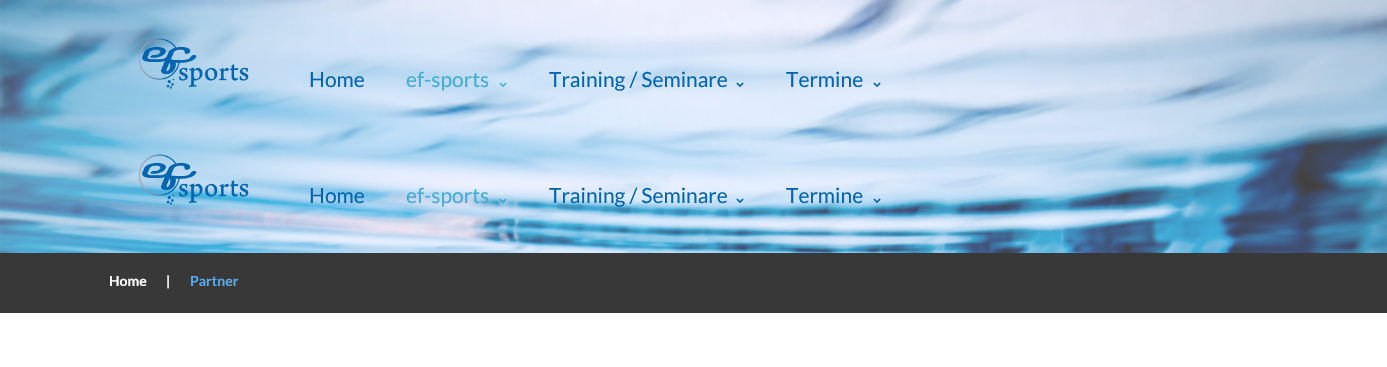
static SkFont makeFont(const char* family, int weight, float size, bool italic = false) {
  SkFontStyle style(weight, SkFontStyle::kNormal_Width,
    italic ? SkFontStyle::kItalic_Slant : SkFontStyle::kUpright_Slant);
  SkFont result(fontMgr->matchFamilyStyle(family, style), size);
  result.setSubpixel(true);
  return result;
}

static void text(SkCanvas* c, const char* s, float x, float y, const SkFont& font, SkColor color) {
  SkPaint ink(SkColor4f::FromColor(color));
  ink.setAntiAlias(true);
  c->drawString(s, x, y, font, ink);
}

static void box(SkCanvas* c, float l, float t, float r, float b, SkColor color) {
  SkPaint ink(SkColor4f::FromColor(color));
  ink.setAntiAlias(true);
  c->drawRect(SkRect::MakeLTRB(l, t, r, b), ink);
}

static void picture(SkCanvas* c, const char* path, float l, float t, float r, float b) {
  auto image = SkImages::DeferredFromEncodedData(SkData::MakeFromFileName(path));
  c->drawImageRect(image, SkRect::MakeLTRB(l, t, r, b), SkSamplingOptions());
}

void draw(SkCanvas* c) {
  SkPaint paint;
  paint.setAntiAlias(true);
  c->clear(0xffffffff);
  picture(c, "img_01.png", 0, 0, 1387, 253);
  picture(c, "img_02.png", 138, 38, 249, 89);
  SkFont face1 = makeFont("Lato", 400, 21);
  text(c, "Home", 309, 87, face1, 0xff0065ae);
  text(c, "ef-sports", 406, 87, face1, 0xff42add2);
  picture(c, "img_03.png", 499, 82, 507, 87);
  text(c, "Training / Seminare", 549, 87, face1, 0xff0065ae);
  picture(c, "img_04.png", 736, 82, 744, 88);
  text(c, "Termine", 786, 87, face1, 0xff0065ae);
  picture(c, "img_05.png", 873, 82, 881, 88);
  picture(c, "img_06.png", 138, 154, 249, 205);
  text(c, "Home", 309, 203, face1, 0xff0065ae);
  text(c, "ef-sports", 406, 203, face1, 0xff42add2);
  picture(c, "img_07.png", 499, 198, 507, 203);
  text(c, "Training / Seminare", 549, 203, face1, 0xff0065ae);
  picture(c, "img_08.png", 736, 198, 744, 204);
  text(c, "Termine", 786, 203, face1, 0xff0065ae);
  picture(c, "img_09.png", 873, 198, 881, 203);
  box(c, 0, 253, 1387, 313, 0xff383838);
  SkFont face2 = makeFont("Lato", 700, 14);
  text(c, "Home", 109, 286, face2, 0xffffffff);
  text(c, "|", 166, 286, face2, 0xffffffff);
  text(c, "Partner", 190, 286, face2, 0xff55acee);
}
